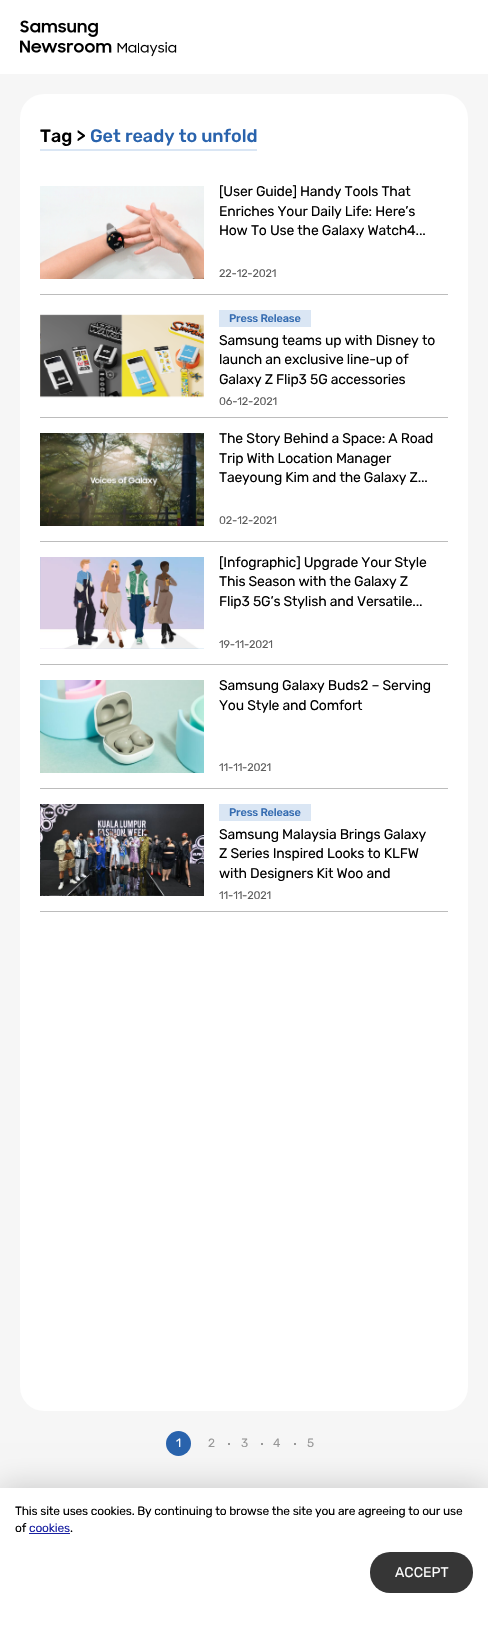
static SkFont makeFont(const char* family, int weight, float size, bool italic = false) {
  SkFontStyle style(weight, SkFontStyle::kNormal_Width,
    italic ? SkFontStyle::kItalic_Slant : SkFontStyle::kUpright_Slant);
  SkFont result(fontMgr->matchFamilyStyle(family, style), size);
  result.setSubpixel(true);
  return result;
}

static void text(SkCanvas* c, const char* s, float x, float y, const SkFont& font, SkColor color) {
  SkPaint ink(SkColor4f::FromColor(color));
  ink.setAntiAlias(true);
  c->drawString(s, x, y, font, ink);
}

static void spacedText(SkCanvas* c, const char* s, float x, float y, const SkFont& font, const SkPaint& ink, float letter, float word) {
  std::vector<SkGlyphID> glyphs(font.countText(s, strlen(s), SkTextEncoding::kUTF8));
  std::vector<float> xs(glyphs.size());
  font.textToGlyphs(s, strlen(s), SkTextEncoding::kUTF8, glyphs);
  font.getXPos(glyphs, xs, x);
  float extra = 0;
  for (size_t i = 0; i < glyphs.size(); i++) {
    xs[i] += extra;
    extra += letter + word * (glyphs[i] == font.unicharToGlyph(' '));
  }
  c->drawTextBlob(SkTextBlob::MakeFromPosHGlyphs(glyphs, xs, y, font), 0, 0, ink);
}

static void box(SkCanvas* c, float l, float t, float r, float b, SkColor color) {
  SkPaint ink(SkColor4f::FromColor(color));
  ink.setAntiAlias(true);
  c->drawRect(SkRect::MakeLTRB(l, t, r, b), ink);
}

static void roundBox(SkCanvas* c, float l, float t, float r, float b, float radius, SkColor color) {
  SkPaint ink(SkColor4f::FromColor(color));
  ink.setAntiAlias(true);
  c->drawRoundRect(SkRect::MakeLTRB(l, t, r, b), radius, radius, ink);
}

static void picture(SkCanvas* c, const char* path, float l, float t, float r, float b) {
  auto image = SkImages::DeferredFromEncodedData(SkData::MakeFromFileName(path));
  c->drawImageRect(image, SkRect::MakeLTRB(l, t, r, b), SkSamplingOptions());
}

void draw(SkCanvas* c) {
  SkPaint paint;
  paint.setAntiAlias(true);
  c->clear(0xffffffff);
  box(c, 0, 74, 488, 1488, 0xfff6f6f6);
  roundBox(c, 20, 94, 468, 1411, 24, 0xffffffff);
  box(c, 40, 149, 257, 151, 0xffdae6f4);
  SkFont face1 = makeFont("Rubik", 500, 18);
  text(c, "Tag >", 40, 142, face1, 0xff000000);
  text(c, "Get ready to unfold", 90, 142, face1, 0xff2963ad);
  box(c, 40, 294, 448, 295, 0xffbcbcbc);
  picture(c, "img_01.png", 40, 186, 204, 279);
  SkFont face2 = makeFont("Rubik", 400, 14);
  paint.setColor(0xff000000);
  spacedText(c, "[User Guide] Handy Tools That", 219, 196, face2, paint, -0.18f, 0);
  spacedText(c, "Enriches Your Daily Life: Here’s", 219, 216, face2, paint, -0.18f, 0);
  spacedText(c, "How To Use the Galaxy Watch4...", 219, 235, face2, paint, -0.18f, 0);
  SkFont face3 = makeFont("Rubik", 400, 11);
  paint.setColor(0xff5d5d5d);
  spacedText(c, "22-12-2021", 219, 277, face3, paint, -0.18f, 0);
  box(c, 40, 417, 448, 418, 0xffbcbcbc);
  picture(c, "img_02.png", 40, 314, 204, 398);
  box(c, 219, 310, 311, 327, 0xffdae6f4);
  SkFont face4 = makeFont("Rubik", 500, 11);
  paint.setColor(0xff356cb1);
  spacedText(c, "Press Release", 229, 322, face4, paint, -0.18f, 0);
  paint.setColor(0xff000000);
  spacedText(c, "Samsung teams up with Disney to", 219, 345, face2, paint, -0.18f, 0);
  spacedText(c, "launch an exclusive line-up of", 219, 364, face2, paint, -0.18f, 0);
  spacedText(c, "Galaxy Z Flip3 5G accessories", 219, 384, face2, paint, -0.18f, 0);
  paint.setColor(0xff5d5d5d);
  spacedText(c, "06-12-2021", 219, 405, face3, paint, -0.18f, 0);
  box(c, 40, 541, 448, 542, 0xffbcbcbc);
  picture(c, "img_03.png", 40, 433, 204, 526);
  paint.setColor(0xff000000);
  spacedText(c, "The Story Behind a Space: A Road", 219, 443, face2, paint, -0.18f, 0);
  spacedText(c, "Trip With Location Manager", 219, 463, face2, paint, -0.18f, 0);
  spacedText(c, "Taeyoung Kim and the Galaxy Z...", 219, 482, face2, paint, -0.18f, 0);
  paint.setColor(0xff5d5d5d);
  spacedText(c, "02-12-2021", 219, 524, face3, paint, -0.18f, 0);
  box(c, 40, 664, 448, 665, 0xffbcbcbc);
  picture(c, "img_04.png", 40, 557, 204, 649);
  paint.setColor(0xff000000);
  spacedText(c, "[Infographic] Upgrade Your Style", 219, 567, face2, paint, -0.18f, 0);
  spacedText(c, "This Season with the Galaxy Z", 219, 586, face2, paint, -0.18f, 0);
  spacedText(c, "Flip3 5G’s Stylish and Versatile...", 219, 606, face2, paint, -0.18f, 0);
  paint.setColor(0xff5d5d5d);
  spacedText(c, "19-11-2021", 219, 648, face3, paint, -0.18f, 0);
  box(c, 40, 788, 448, 789, 0xffbcbcbc);
  picture(c, "img_05.png", 40, 680, 204, 773);
  paint.setColor(0xff000000);
  spacedText(c, "Samsung Galaxy Buds2 – Serving", 219, 690, face2, paint, -0.18f, 0);
  spacedText(c, "You Style and Comfort", 219, 710, face2, paint, -0.18f, 0);
  paint.setColor(0xff5d5d5d);
  spacedText(c, "11-11-2021", 219, 771, face3, paint, -0.18f, 0);
  box(c, 40, 911, 448, 912, 0xffbcbcbc);
  picture(c, "img_06.png", 40, 804, 204, 896);
  box(c, 219, 804, 311, 821, 0xffdae6f4);
  paint.setColor(0xff356cb1);
  spacedText(c, "Press Release", 229, 816, face4, paint, -0.18f, 0);
  paint.setColor(0xff000000);
  spacedText(c, "Samsung Malaysia Brings Galaxy", 219, 839, face2, paint, -0.18f, 0);
  spacedText(c, "Z Series Inspired Looks to KLFW", 219, 858, face2, paint, -0.18f, 0);
  spacedText(c, "with Designers Kit Woo and", 219, 878, face2, paint, -0.18f, 0);
  paint.setColor(0xff5d5d5d);
  spacedText(c, "11-11-2021", 219, 899, face3, paint, -0.18f, 0);
  paint.setColor(0xff2963ad);
  c->drawCircle(178.5f, 1443.5f, 12.5f, paint);
  SkFont face5 = makeFont("Rubik", 400, 12);
  paint.setColor(0xffffffff);
  spacedText(c, "1", 176, 1447, face5, paint, -0.18f, 0);
  paint.setColor(0xff999999);
  spacedText(c, "2", 208, 1447, face5, paint, -0.18f, 0);
  box(c, 228, 1443, 230, 1445, 0xff999999);
  spacedText(c, "3", 241, 1447, face5, paint, -0.18f, 0);
  box(c, 261, 1443, 263, 1445, 0xff999999);
  spacedText(c, "4", 273, 1447, face5, paint, -0.18f, 0);
  box(c, 294, 1443, 296, 1445, 0xff999999);
  spacedText(c, "5", 307, 1447, face5, paint, -0.18f, 0);
  picture(c, "img_07.png", 20, 20, 177, 57);
  paint.setColor(0x33000000);
  paint.setMaskFilter(SkMaskFilter::MakeBlur(kNormal_SkBlurStyle, 15));
  c->drawRect(SkRect::MakeLTRB(0, 1488, 488, 1633), paint);
  paint.setMaskFilter(nullptr);
  box(c, 0, 1488, 488, 1633, 0xffffffff);
  paint.setColor(0xff000000);
  spacedText(c, "This site uses cookies. By continuing to browse the site you are agreeing to our use", 15, 1515, face5, paint, -0.18f, 0);
  spacedText(c, "of", 15, 1532, face5, paint, -0.18f, 0);
  paint.setColor(0xff1920a2);
  spacedText(c, "cookies", 29, 1532, face5, paint, -0.18f, 0);
  box(c, 29, 1533, 70, 1534, 0xff1920a2);
  paint.setColor(0xff000000);
  spacedText(c, ".", 70, 1532, face5, paint, -0.18f, 0);
  roundBox(c, 370, 1552, 473, 1593, 20, 0xff363636);
  text(c, "ACCEPT", 395, 1577, face2, 0xffffffff);
}
